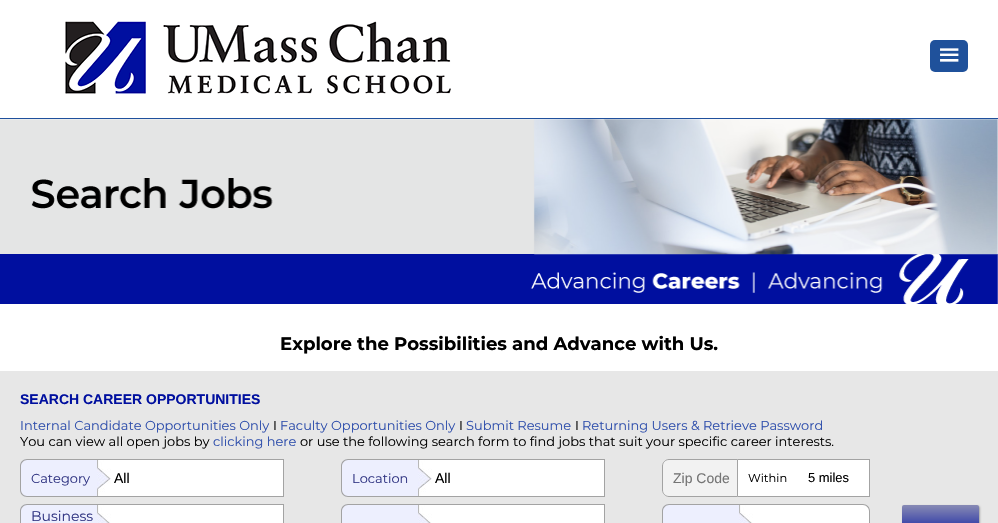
static SkFont makeFont(const char* family, int weight, float size, bool italic = false) {
  SkFontStyle style(weight, SkFontStyle::kNormal_Width,
    italic ? SkFontStyle::kItalic_Slant : SkFontStyle::kUpright_Slant);
  SkFont result(fontMgr->matchFamilyStyle(family, style), size);
  result.setSubpixel(true);
  return result;
}

static void text(SkCanvas* c, const char* s, float x, float y, const SkFont& font, SkColor color) {
  SkPaint ink(SkColor4f::FromColor(color));
  ink.setAntiAlias(true);
  c->drawString(s, x, y, font, ink);
}

static void box(SkCanvas* c, float l, float t, float r, float b, SkColor color) {
  SkPaint ink(SkColor4f::FromColor(color));
  ink.setAntiAlias(true);
  c->drawRect(SkRect::MakeLTRB(l, t, r, b), ink);
}

static void roundBox(SkCanvas* c, float l, float t, float r, float b, float radius, SkColor color) {
  SkPaint ink(SkColor4f::FromColor(color));
  ink.setAntiAlias(true);
  c->drawRoundRect(SkRect::MakeLTRB(l, t, r, b), radius, radius, ink);
}

static void picture(SkCanvas* c, const char* path, float l, float t, float r, float b) {
  auto image = SkImages::DeferredFromEncodedData(SkData::MakeFromFileName(path));
  c->drawImageRect(image, SkRect::MakeLTRB(l, t, r, b), SkSamplingOptions());
}

void draw(SkCanvas* c) {
  SkPaint paint;
  paint.setAntiAlias(true);
  c->clear(0xffffffff);
  picture(c, "img_01.png", 65, 21, 451, 94);
  roundBox(c, 930, 40, 968, 72, 5, 0xff1f519b);
  SkFont face1 = makeFont("DejaVu Sans", 400, 29);
  text(c, "≡", 937, 64, face1, 0xffffffff);
  box(c, 0, 118, 998, 119, 0xff1f509d);
  picture(c, "img_02.png", 0, 119, 998, 304);
  SkFont face2 = makeFont("Montserrat", 700, 18.1f);
  text(c, "Explore the Possibilities and Advance with Us.", 280, 350, face2, 0xff000000);
  box(c, 0, 371, 998, 523, 0xffe7e7e7);
  SkFont face3 = makeFont("Liberation Sans", 700, 14);
  text(c, "SEARCH CAREER OPPORTUNITIES", 20, 404, face3, 0xff000f9f);
  SkFont face4 = makeFont("Montserrat", 400, 12.95f);
  text(c, "Internal Candidate Opportunities Only", 20, 430, face4, 0xff2f4fac);
  text(c, "I", 273, 430, face4, 0xff000000);
  text(c, "Faculty Opportunities Only", 280, 430, face4, 0xff2f4fac);
  text(c, "I", 459, 430, face4, 0xff000000);
  text(c, "Submit Resume", 466, 430, face4, 0xff2f4fac);
  text(c, "I", 575, 430, face4, 0xff000000);
  text(c, "Returning Users & Retrieve Password", 582, 430, face4, 0xff2f4fac);
  text(c, "You can view all open jobs by", 20, 446, face4, 0xff000000);
  text(c, "clicking here", 213, 446, face4, 0xff2f4fac);
  text(c, "or use the following search form to find jobs that suit your specific career interests.", 300, 446, face4, 0xff000000);
  paint.setColor(0xffedeffe);
  c->drawPath(SkPathBuilder().moveTo(27, 459).lineTo(111, 459).lineTo(111, 497).lineTo(27, 497).cubicTo(23, 497, 20, 494, 20, 490).lineTo(20, 466).cubicTo(20, 462, 23, 459, 27, 459).close().detach(), paint);
  picture(c, "img_03.png", 97, 460, 111, 496);
  paint.setColor(0xffa3a3a3);
  c->drawPath(SkPathBuilder(SkPathFillType::kEvenOdd).moveTo(27, 459).lineTo(111, 459).lineTo(111, 497).lineTo(27, 497).cubicTo(23, 497, 20, 494, 20, 490).lineTo(20, 466).cubicTo(20, 462, 23, 459, 27, 459).close().moveTo(27, 460).lineTo(111, 460).lineTo(111, 496).lineTo(27, 496).cubicTo(24, 496, 21, 493, 21, 490).lineTo(21, 466).cubicTo(21, 463, 24, 460, 27, 460).close().detach(), paint);
  text(c, "Category", 31, 483, face4, 0xff313583);
  box(c, 111, 460, 283, 496, 0xffffffff);
  box(c, 111, 459, 284, 460, 0xffa3a3a3);
  box(c, 283, 459, 284, 497, 0xffa3a3a3);
  box(c, 111, 496, 284, 497, 0xffa3a3a3);
  SkFont face5 = makeFont("Liberation Sans", 400, 14);
  text(c, "All", 114, 483, face5, 0xff000000);
  paint.setColor(0xffedeffe);
  c->drawPath(SkPathBuilder().moveTo(27, 504).lineTo(111, 504).lineTo(111, 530).lineTo(27, 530).cubicTo(23, 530, 20, 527, 20, 523).lineTo(20, 511).cubicTo(20, 507, 23, 504, 27, 504).close().detach(), paint);
  picture(c, "img_04.png", 97, 505, 111, 523);
  paint.setColor(0xffa3a3a3);
  c->drawPath(SkPathBuilder(SkPathFillType::kEvenOdd).moveTo(27, 504).lineTo(111, 504).lineTo(111, 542).lineTo(27, 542).cubicTo(23, 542, 20, 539, 20, 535).lineTo(20, 511).cubicTo(20, 507, 23, 504, 27, 504).close().moveTo(27, 505).lineTo(111, 505).lineTo(111, 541).lineTo(27, 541).cubicTo(24, 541, 21, 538, 21, 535).lineTo(21, 511).cubicTo(21, 508, 24, 505, 27, 505).close().detach(), paint);
  SkFont face6 = makeFont("Montserrat", 400, 14);
  text(c, "Business", 31, 521, face6, 0xff313583);
  box(c, 111, 505, 283, 523, 0xffffffff);
  box(c, 111, 504, 284, 505, 0xffa3a3a3);
  box(c, 283, 504, 284, 523, 0xffa3a3a3);
  paint.setColor(0xffedeffe);
  c->drawPath(SkPathBuilder().moveTo(348, 459).lineTo(432, 459).lineTo(432, 497).lineTo(348, 497).cubicTo(344, 497, 341, 494, 341, 490).lineTo(341, 466).cubicTo(341, 462, 344, 459, 348, 459).close().detach(), paint);
  picture(c, "img_03.png", 418, 460, 432, 496);
  paint.setColor(0xffa3a3a3);
  c->drawPath(SkPathBuilder(SkPathFillType::kEvenOdd).moveTo(348, 459).lineTo(432, 459).lineTo(432, 497).lineTo(348, 497).cubicTo(344, 497, 341, 494, 341, 490).lineTo(341, 466).cubicTo(341, 462, 344, 459, 348, 459).close().moveTo(348, 460).lineTo(432, 460).lineTo(432, 496).lineTo(348, 496).cubicTo(345, 496, 342, 493, 342, 490).lineTo(342, 466).cubicTo(342, 463, 345, 460, 348, 460).close().detach(), paint);
  text(c, "Location", 352, 483, face4, 0xff313583);
  box(c, 432, 460, 604, 496, 0xffffffff);
  box(c, 432, 459, 605, 460, 0xffa3a3a3);
  box(c, 604, 459, 605, 497, 0xffa3a3a3);
  box(c, 432, 496, 605, 497, 0xffa3a3a3);
  text(c, "All", 435, 483, face5, 0xff000000);
  paint.setColor(0xffedeffe);
  c->drawPath(SkPathBuilder().moveTo(348, 504).lineTo(432, 504).lineTo(432, 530).lineTo(348, 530).cubicTo(344, 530, 341, 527, 341, 523).lineTo(341, 511).cubicTo(341, 507, 344, 504, 348, 504).close().detach(), paint);
  picture(c, "img_04.png", 418, 505, 432, 523);
  paint.setColor(0xffa3a3a3);
  c->drawPath(SkPathBuilder(SkPathFillType::kEvenOdd).moveTo(348, 504).lineTo(432, 504).lineTo(432, 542).lineTo(348, 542).cubicTo(344, 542, 341, 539, 341, 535).lineTo(341, 511).cubicTo(341, 507, 344, 504, 348, 504).close().moveTo(348, 505).lineTo(432, 505).lineTo(432, 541).lineTo(348, 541).cubicTo(345, 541, 342, 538, 342, 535).lineTo(342, 511).cubicTo(342, 508, 345, 505, 348, 505).close().detach(), paint);
  box(c, 432, 505, 604, 523, 0xffffffff);
  box(c, 432, 504, 605, 505, 0xffa3a3a3);
  box(c, 604, 504, 605, 523, 0xffa3a3a3);
  paint.setColor(0xfff2f2f2);
  c->drawPath(SkPathBuilder().moveTo(669, 459.5f).lineTo(737.5f, 459.5f).lineTo(737.5f, 496.5f).lineTo(669, 496.5f).cubicTo(665.5f, 496.5f, 662.5f, 493.5f, 662.5f, 490).lineTo(662.5f, 466).cubicTo(662.5f, 462.5f, 665.5f, 459.5f, 669, 459.5f).close().detach(), paint);
  paint.setStyle(SkPaint::kStroke_Style);
  paint.setStrokeWidth(1);
  paint.setColor(0xffa3a3a3);
  c->drawPath(SkPathBuilder().moveTo(669, 459.5f).lineTo(737.5f, 459.5f).lineTo(737.5f, 496.5f).lineTo(669, 496.5f).cubicTo(665.5f, 496.5f, 662.5f, 493.5f, 662.5f, 490).lineTo(662.5f, 466).cubicTo(662.5f, 462.5f, 665.5f, 459.5f, 669, 459.5f).close().detach(), paint);
  text(c, "Zip Code", 673, 483, face5, 0xff757575);
  box(c, 738, 460, 869, 496, 0xffffffff);
  box(c, 738, 459, 870, 460, 0xffa3a3a3);
  box(c, 738, 496, 798, 497, 0xffa3a3a3);
  SkFont face7 = makeFont("Montserrat", 400, 11.5f);
  text(c, "Within", 748, 482, face7, 0xff000000);
  box(c, 869, 459, 870, 497, 0xffa3a3a3);
  box(c, 798, 496, 870, 497, 0xffa3a3a3);
  SkFont face8 = makeFont("Liberation Sans", 400, 12.95f);
  text(c, "5 miles", 808, 482, face8, 0xff000000);
  paint.setStyle(SkPaint::kFill_Style);
  paint.setColor(0xffedeffe);
  c->drawPath(SkPathBuilder().moveTo(669, 504).lineTo(753, 504).lineTo(753, 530).lineTo(669, 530).cubicTo(665, 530, 662, 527, 662, 523).lineTo(662, 511).cubicTo(662, 507, 665, 504, 669, 504).close().detach(), paint);
  picture(c, "img_04.png", 739, 505, 753, 523);
  paint.setColor(0xffa3a3a3);
  c->drawPath(SkPathBuilder(SkPathFillType::kEvenOdd).moveTo(669, 504).lineTo(753, 504).lineTo(753, 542).lineTo(669, 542).cubicTo(665, 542, 662, 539, 662, 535).lineTo(662, 511).cubicTo(662, 507, 665, 504, 669, 504).close().moveTo(669, 505).lineTo(753, 505).lineTo(753, 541).lineTo(669, 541).cubicTo(666, 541, 663, 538, 663, 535).lineTo(663, 511).cubicTo(663, 508, 666, 505, 669, 505).close().detach(), paint);
  paint.setColor(0xffffffff);
  c->drawPath(SkPathBuilder().moveTo(753, 504).lineTo(863, 504).cubicTo(867, 504, 870, 507, 870, 511).lineTo(870, 523).cubicTo(870, 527, 867, 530, 863, 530).lineTo(753, 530).close().detach(), paint);
  paint.setColor(0xffa3a3a3);
  c->drawPath(SkPathBuilder(SkPathFillType::kEvenOdd).moveTo(753, 504).lineTo(863, 504).cubicTo(867, 504, 870, 507, 870, 511).lineTo(870, 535).cubicTo(870, 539, 867, 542, 863, 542).lineTo(753, 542).close().moveTo(753, 505).lineTo(863, 505).cubicTo(866, 505, 869, 508, 869, 511).lineTo(869, 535).cubicTo(869, 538, 866, 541, 863, 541).lineTo(753, 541).close().detach(), paint);
  paint.setColor(0xffa2a2a2);
  paint.setMaskFilter(SkMaskFilter::MakeBlur(kNormal_SkBlurStyle, 1));
  c->drawRoundRect(SkRect::MakeLTRB(903, 506, 980, 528), 2, 2, paint);
  paint.setMaskFilter(nullptr);
  {
    const SkColor colors[] = {0xff8588b4, 0xff000f9f};
    const float stops[] = {0.02f, 1};
    const SkPoint ends[] = {{941, 505}, {941, 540}};
    paint.setShader(SkGradientShader::MakeLinear(ends, colors, stops, 2, SkTileMode::kClamp));
    paint.setAlpha(255);
  }
  c->drawRoundRect(SkRect::MakeLTRB(902, 505, 979, 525), 2, 2, paint);
}
